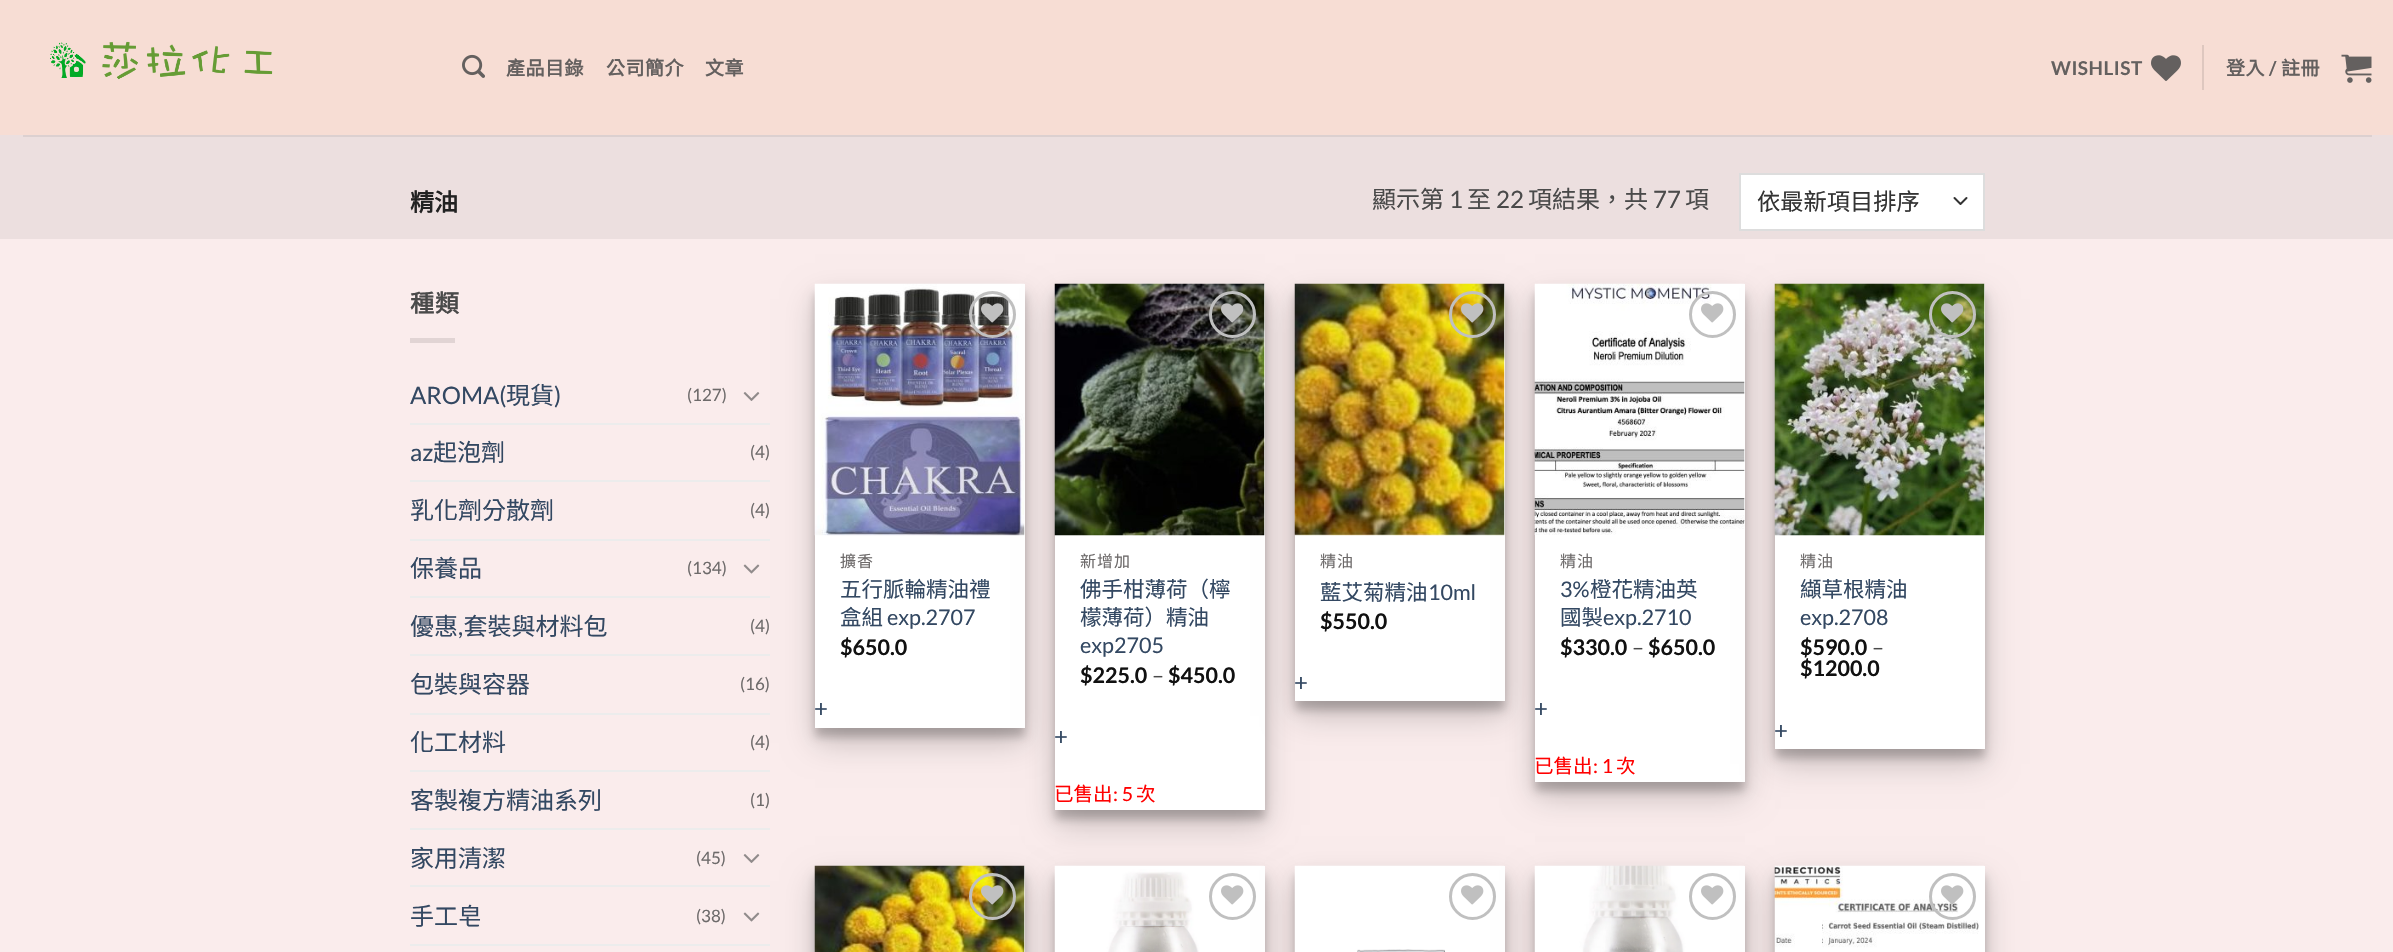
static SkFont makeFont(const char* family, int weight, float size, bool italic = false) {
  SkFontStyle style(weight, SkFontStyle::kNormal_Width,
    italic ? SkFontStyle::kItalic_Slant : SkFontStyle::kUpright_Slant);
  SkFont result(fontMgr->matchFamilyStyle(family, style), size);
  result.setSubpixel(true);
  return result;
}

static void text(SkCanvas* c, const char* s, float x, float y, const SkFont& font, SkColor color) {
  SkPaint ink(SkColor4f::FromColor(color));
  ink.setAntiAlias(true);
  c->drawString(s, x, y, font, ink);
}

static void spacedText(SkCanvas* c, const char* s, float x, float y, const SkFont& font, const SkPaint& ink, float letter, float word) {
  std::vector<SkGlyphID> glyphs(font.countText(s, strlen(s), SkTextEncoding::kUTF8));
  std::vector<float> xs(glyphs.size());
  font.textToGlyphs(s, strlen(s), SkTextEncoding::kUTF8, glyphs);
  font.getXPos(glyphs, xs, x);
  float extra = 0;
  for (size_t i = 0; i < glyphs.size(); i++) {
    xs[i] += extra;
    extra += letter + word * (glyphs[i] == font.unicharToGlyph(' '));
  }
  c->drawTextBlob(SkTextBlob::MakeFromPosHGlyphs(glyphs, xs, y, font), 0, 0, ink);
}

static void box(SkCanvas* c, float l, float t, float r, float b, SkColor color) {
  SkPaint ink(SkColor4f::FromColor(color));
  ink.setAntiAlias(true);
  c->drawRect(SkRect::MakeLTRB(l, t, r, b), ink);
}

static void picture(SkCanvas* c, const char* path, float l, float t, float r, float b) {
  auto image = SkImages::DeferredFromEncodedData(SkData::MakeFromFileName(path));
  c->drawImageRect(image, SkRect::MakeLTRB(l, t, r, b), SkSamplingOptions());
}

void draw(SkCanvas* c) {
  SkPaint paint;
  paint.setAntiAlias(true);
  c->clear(0xffecdfdf);
  box(c, 0, 0, 2393, 135, 0xfff7ddd4);
  picture(c, "img_01.png", 50, 41, 273, 80);
  picture(c, "img_02.png", 462, 54, 485, 78);
  SkFont face1 = makeFont("Noto Sans CJK TC", 700, 19);
  paint.setColor(0xff64605f);
  spacedText(c, "產品目錄", 506, 75, face1, paint, 0.5f, 0);
  spacedText(c, "公司簡介", 606, 75, face1, paint, 0.5f, 0);
  spacedText(c, "文章", 705, 75, face1, paint, 0.5f, 0);
  SkFont face2 = makeFont("Lato", 700, 19);
  spacedText(c, "WISHLIST", 2051, 75, face2, paint, 0.5f, 0);
  picture(c, "img_03.png", 2151, 55, 2181, 81);
  box(c, 2202, 45, 2204, 90, 0xffdec7bf);
  spacedText(c, "登入", 2226, 75, face1, paint, 0.5f, 0);
  spacedText(c, "/", 2269, 75, face2, paint, 0.5f, 0);
  spacedText(c, "註冊", 2281, 75, face1, paint, 0.5f, 0);
  picture(c, "img_04.png", 2341, 54, 2372, 83);
  box(c, 23, 135, 2372, 137, 0xffdcd0d0);
  SkFont face3 = makeFont("Noto Sans CJK TC", 700, 24);
  text(c, "精油", 410, 211, face3, 0xff222222);
  SkFont face4 = makeFont("Noto Sans CJK TC", 400, 24);
  text(c, "顯示第", 1372, 208, face4, 0xff4a4a4a);
  SkFont face5 = makeFont("Lato", 400, 24);
  text(c, "1", 1449, 208, face5, 0xff4a4a4a);
  text(c, "至", 1467, 208, face4, 0xff4a4a4a);
  text(c, "22", 1496, 208, face5, 0xff4a4a4a);
  text(c, "項結果，共", 1528, 208, face4, 0xff4a4a4a);
  text(c, "77", 1653, 208, face5, 0xff4a4a4a);
  text(c, "項", 1685, 208, face4, 0xff4a4a4a);
  box(c, 1741, 175, 1983, 229, 0xffffffff);
  paint.setStyle(SkPaint::kStroke_Style);
  paint.setStrokeWidth(2);
  paint.setStrokeCap(SkPaint::kRound_Cap);
  paint.setStrokeJoin(SkPaint::kRound_Join);
  paint.setColor(0xff333333);
  c->drawPath(SkPathBuilder().moveTo(1954.5f, 198).lineTo(1960.5f, 204).lineTo(1966.5f, 198).detach(), paint);
  paint.setStrokeCap(SkPaint::kButt_Cap);
  paint.setStrokeJoin(SkPaint::kMiter_Join);
  paint.setColor(0xffdddddd);
  c->drawRect(SkRect::MakeLTRB(1740, 174, 1984, 230), paint);
  SkFont face6 = makeFont("Noto Sans CJK TC", 400, 23.25f);
  text(c, "依最新項目排序", 1757, 210, face6, 0xff333333);
  box(c, 0, 239, 2393, 952, 0xfffaecec);
  paint.setStyle(SkPaint::kFill_Style);
  paint.setColor(0xff4a4a4a);
  spacedText(c, "種類", 410, 312, face3, paint, 1, 0);
  box(c, 410, 338, 455, 343, 0xffe1d4d4);
  text(c, "AROMA(", 410, 404, face5, 0xff334862);
  text(c, "現貨", 506, 404, face4, 0xff334862);
  text(c, ")", 554, 404, face5, 0xff334862);
  SkFont face7 = makeFont("Lato", 400, 17);
  text(c, "(127)", 687, 401, face7, 0xff6d6a6a);
  picture(c, "img_05.png", 743, 392, 760, 401);
  box(c, 410, 423, 770, 425, 0xffececec);
  text(c, "az", 410, 461, face5, 0xff334862);
  text(c, "起泡劑", 433, 461, face4, 0xff334862);
  text(c, "(4)", 750, 458, face7, 0xff6d6a6a);
  box(c, 410, 480, 770, 482, 0xffececec);
  text(c, "乳化劑分散劑", 410, 519, face4, 0xff334862);
  text(c, "(4)", 750, 516, face7, 0xff6d6a6a);
  box(c, 410, 539, 770, 541, 0xffececec);
  text(c, "保養品", 410, 577, face4, 0xff334862);
  text(c, "(134)", 687, 574, face7, 0xff6d6a6a);
  picture(c, "img_06.png", 743, 564, 760, 574);
  box(c, 410, 596, 770, 598, 0xffececec);
  text(c, "優惠 套裝與材料包", 410, 635, face4, 0xff334862);
  text(c, ",", 458, 635, face5, 0xff334862);
  text(c, "(4)", 750, 632, face7, 0xff6d6a6a);
  box(c, 410, 654, 770, 656, 0xffececec);
  text(c, "包裝與容器", 410, 693, face4, 0xff334862);
  text(c, "(16)", 740, 690, face7, 0xff6d6a6a);
  box(c, 410, 713, 770, 715, 0xffececec);
  text(c, "化工材料", 410, 751, face4, 0xff334862);
  text(c, "(4)", 750, 748, face7, 0xff6d6a6a);
  box(c, 410, 770, 770, 772, 0xffececec);
  text(c, "客製複方精油系列", 410, 809, face4, 0xff334862);
  text(c, "(1)", 750, 806, face7, 0xff6d6a6a);
  box(c, 410, 828, 770, 830, 0xffececec);
  text(c, "家用清潔", 410, 867, face4, 0xff334862);
  text(c, "(45)", 696, 864, face7, 0xff6d6a6a);
  picture(c, "img_05.png", 743, 854, 760, 863);
  box(c, 410, 885, 770, 887, 0xffececec);
  text(c, "手工皂", 410, 925, face4, 0xff334862);
  text(c, "(38)", 696, 922, face7, 0xff6d6a6a);
  picture(c, "img_06.png", 743, 912, 760, 922);
  box(c, 410, 944, 770, 946, 0xffececec);
  paint.setColor(0x38000000);
  paint.setMaskFilter(SkMaskFilter::MakeBlur(kNormal_SkBlurStyle, 4.5f));
  c->drawRect(SkRect::MakeLTRB(815, 293, 1025, 737), paint);
  paint.setMaskFilter(nullptr);
  paint.setColor(0x30000000);
  paint.setMaskFilter(SkMaskFilter::MakeBlur(kNormal_SkBlurStyle, 15));
  c->drawRect(SkRect::MakeLTRB(815, 299, 1025, 743), paint);
  paint.setMaskFilter(nullptr);
  box(c, 815, 284, 1025, 728, 0xffffffff);
  picture(c, "img_07.png", 814, 283, 1025, 536);
  paint.setStyle(SkPaint::kStroke_Style);
  paint.setStrokeWidth(3);
  paint.setColor(0xffc0c0c0);
  c->drawCircle(992.5f, 314.5f, 22, paint);
  picture(c, "img_08.png", 981, 303, 1004, 323);
  SkFont face8 = makeFont("Noto Sans CJK TC", 400, 16);
  paint.setStyle(SkPaint::kFill_Style);
  paint.setColor(0xff6d6a6a);
  spacedText(c, "擴香", 840, 567, face8, paint, 1, 0);
  SkFont face9 = makeFont("Noto Sans CJK TC", 400, 21.5f);
  text(c, "五行脈輪精油禮", 840, 597, face9, 0xff334862);
  text(c, "盒組", 840, 625, face9, 0xff334862);
  SkFont face10 = makeFont("Lato", 400, 21.5f);
  text(c, "exp.2707", 887, 625, face10, 0xff334862);
  SkFont face11 = makeFont("Lato", 700, 21.5f);
  text(c, "$650.0", 840, 655, face11, 0xff111111);
  text(c, "+", 814, 717, face5, 0xff334862);
  paint.setColor(0x38000000);
  paint.setMaskFilter(SkMaskFilter::MakeBlur(kNormal_SkBlurStyle, 4.5f));
  c->drawRect(SkRect::MakeLTRB(1055, 293, 1265, 819), paint);
  paint.setMaskFilter(nullptr);
  paint.setColor(0x30000000);
  paint.setMaskFilter(SkMaskFilter::MakeBlur(kNormal_SkBlurStyle, 15));
  c->drawRect(SkRect::MakeLTRB(1055, 299, 1265, 825), paint);
  paint.setMaskFilter(nullptr);
  box(c, 1055, 284, 1265, 810, 0xffffffff);
  picture(c, "img_09.png", 1054, 283, 1265, 536);
  paint.setStyle(SkPaint::kStroke_Style);
  paint.setColor(0xffc0c0c0);
  c->drawCircle(1232.5f, 314.5f, 22, paint);
  picture(c, "img_10.png", 1221, 303, 1244, 323);
  paint.setStyle(SkPaint::kFill_Style);
  paint.setColor(0xff6d6a6a);
  spacedText(c, "新增加", 1080, 567, face8, paint, 1, 0);
  text(c, "佛手柑薄荷（檸", 1080, 597, face9, 0xff334862);
  text(c, "檬薄荷）精油", 1080, 625, face9, 0xff334862);
  text(c, "exp2705", 1080, 653, face10, 0xff334862);
  text(c, "$225.0", 1080, 683, face11, 0xff111111);
  text(c, "–", 1152, 683, face10, 0xff4a4a4a);
  text(c, "$450.0", 1168, 683, face11, 0xff111111);
  text(c, "+", 1054, 745, face5, 0xff334862);
  SkFont face12 = makeFont("Noto Sans CJK TC", 400, 19.5f);
  text(c, "已售出", 1054, 801, face12, 0xffff0000);
  SkFont face13 = makeFont("Lato", 400, 19.5f);
  text(c, ": 5", 1113, 801, face13, 0xffff0000);
  text(c, "次", 1136, 801, face12, 0xffff0000);
  paint.setColor(0x38000000);
  paint.setMaskFilter(SkMaskFilter::MakeBlur(kNormal_SkBlurStyle, 4.5f));
  c->drawRect(SkRect::MakeLTRB(1295, 293, 1505, 710), paint);
  paint.setMaskFilter(nullptr);
  paint.setColor(0x30000000);
  paint.setMaskFilter(SkMaskFilter::MakeBlur(kNormal_SkBlurStyle, 15));
  c->drawRect(SkRect::MakeLTRB(1295, 299, 1505, 716), paint);
  paint.setMaskFilter(nullptr);
  box(c, 1295, 284, 1505, 701, 0xffffffff);
  picture(c, "img_11.png", 1294, 283, 1505, 536);
  paint.setStyle(SkPaint::kStroke_Style);
  paint.setColor(0xffc0c0c0);
  c->drawCircle(1472.5f, 314.5f, 22, paint);
  picture(c, "img_12.png", 1461, 303, 1484, 323);
  paint.setStyle(SkPaint::kFill_Style);
  paint.setColor(0xff6d6a6a);
  spacedText(c, "精油", 1320, 567, face8, paint, 1, 0);
  text(c, "藍艾菊精油", 1320, 600, face9, 0xff334862);
  text(c, "10ml", 1428, 600, face10, 0xff334862);
  text(c, "$550.0", 1320, 629, face11, 0xff111111);
  text(c, "+", 1294, 691, face5, 0xff334862);
  paint.setColor(0x38000000);
  paint.setMaskFilter(SkMaskFilter::MakeBlur(kNormal_SkBlurStyle, 4.5f));
  c->drawRect(SkRect::MakeLTRB(1535, 293, 1745, 791), paint);
  paint.setMaskFilter(nullptr);
  paint.setColor(0x30000000);
  paint.setMaskFilter(SkMaskFilter::MakeBlur(kNormal_SkBlurStyle, 15));
  c->drawRect(SkRect::MakeLTRB(1535, 299, 1745, 797), paint);
  paint.setMaskFilter(nullptr);
  box(c, 1535, 284, 1745, 782, 0xffffffff);
  picture(c, "img_13.png", 1534, 283, 1745, 535);
  paint.setStyle(SkPaint::kStroke_Style);
  paint.setColor(0xffc0c0c0);
  c->drawCircle(1712.5f, 314.5f, 22, paint);
  picture(c, "img_14.png", 1701, 303, 1724, 323);
  paint.setStyle(SkPaint::kFill_Style);
  paint.setColor(0xff6d6a6a);
  spacedText(c, "精油", 1560, 567, face8, paint, 1, 0);
  text(c, "3%", 1560, 597, face10, 0xff334862);
  text(c, "橙花精油英", 1590, 597, face9, 0xff334862);
  text(c, "國製", 1560, 625, face9, 0xff334862);
  text(c, "exp.2710", 1603, 625, face10, 0xff334862);
  text(c, "$330.0", 1560, 655, face11, 0xff111111);
  text(c, "–", 1632, 655, face10, 0xff4a4a4a);
  text(c, "$650.0", 1648, 655, face11, 0xff111111);
  text(c, "+", 1534, 717, face5, 0xff334862);
  text(c, "已售出", 1534, 773, face12, 0xffff0000);
  text(c, ": 1", 1593, 773, face13, 0xffff0000);
  text(c, "次", 1616, 773, face12, 0xffff0000);
  paint.setColor(0x38000000);
  paint.setMaskFilter(SkMaskFilter::MakeBlur(kNormal_SkBlurStyle, 4.5f));
  c->drawRect(SkRect::MakeLTRB(1775, 293, 1985, 758), paint);
  paint.setMaskFilter(nullptr);
  paint.setColor(0x30000000);
  paint.setMaskFilter(SkMaskFilter::MakeBlur(kNormal_SkBlurStyle, 15));
  c->drawRect(SkRect::MakeLTRB(1775, 299, 1985, 764), paint);
  paint.setMaskFilter(nullptr);
  box(c, 1775, 284, 1985, 749, 0xffffffff);
  picture(c, "img_15.png", 1774, 283, 1985, 536);
  paint.setStyle(SkPaint::kStroke_Style);
  paint.setColor(0xffc0c0c0);
  c->drawCircle(1952.5f, 314.5f, 22, paint);
  picture(c, "img_16.png", 1941, 303, 1964, 323);
  paint.setStyle(SkPaint::kFill_Style);
  paint.setColor(0xff6d6a6a);
  spacedText(c, "精油", 1800, 567, face8, paint, 1, 0);
  text(c, "纈草根精油", 1800, 597, face9, 0xff334862);
  text(c, "exp.2708", 1800, 625, face10, 0xff334862);
  text(c, "$590.0", 1800, 655, face11, 0xff111111);
  text(c, "–", 1872, 655, face10, 0xff4a4a4a);
  text(c, "$1200.0", 1800, 676, face11, 0xff111111);
  text(c, "+", 1774, 739, face5, 0xff334862);
  paint.setColor(0x38000000);
  paint.setMaskFilter(SkMaskFilter::MakeBlur(kNormal_SkBlurStyle, 4.5f));
  c->drawRect(SkRect::MakeLTRB(815, 875, 1025, 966), paint);
  paint.setMaskFilter(nullptr);
  paint.setColor(0x30000000);
  paint.setMaskFilter(SkMaskFilter::MakeBlur(kNormal_SkBlurStyle, 15));
  c->drawRect(SkRect::MakeLTRB(815, 881, 1025, 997), paint);
  paint.setMaskFilter(nullptr);
  box(c, 1024, 866, 1025, 952, 0xffffffff);
  picture(c, "img_17.png", 814, 865, 1025, 952);
  paint.setStyle(SkPaint::kStroke_Style);
  paint.setColor(0xffc0c0c0);
  c->drawCircle(992.5f, 896.5f, 22, paint);
  picture(c, "img_18.png", 981, 885, 1004, 905);
  paint.setStyle(SkPaint::kFill_Style);
  paint.setColor(0x38000000);
  paint.setMaskFilter(SkMaskFilter::MakeBlur(kNormal_SkBlurStyle, 4.5f));
  c->drawRect(SkRect::MakeLTRB(1055, 875, 1265, 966), paint);
  paint.setMaskFilter(nullptr);
  paint.setColor(0x30000000);
  paint.setMaskFilter(SkMaskFilter::MakeBlur(kNormal_SkBlurStyle, 15));
  c->drawRect(SkRect::MakeLTRB(1055, 881, 1265, 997), paint);
  paint.setMaskFilter(nullptr);
  box(c, 1264, 866, 1265, 952, 0xffffffff);
  picture(c, "img_19.png", 1054, 865, 1264, 952);
  paint.setStyle(SkPaint::kStroke_Style);
  paint.setColor(0xffc0c0c0);
  c->drawCircle(1232.5f, 896.5f, 22, paint);
  picture(c, "img_20.png", 1221, 885, 1244, 905);
  paint.setStyle(SkPaint::kFill_Style);
  paint.setColor(0x38000000);
  paint.setMaskFilter(SkMaskFilter::MakeBlur(kNormal_SkBlurStyle, 4.5f));
  c->drawRect(SkRect::MakeLTRB(1295, 875, 1505, 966), paint);
  paint.setMaskFilter(nullptr);
  paint.setColor(0x30000000);
  paint.setMaskFilter(SkMaskFilter::MakeBlur(kNormal_SkBlurStyle, 15));
  c->drawRect(SkRect::MakeLTRB(1295, 881, 1505, 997), paint);
  paint.setMaskFilter(nullptr);
  box(c, 1504, 866, 1505, 952, 0xffffffff);
  picture(c, "img_21.png", 1294, 865, 1504, 952);
  paint.setStyle(SkPaint::kStroke_Style);
  paint.setColor(0xffc0c0c0);
  c->drawCircle(1472.5f, 896.5f, 22, paint);
  picture(c, "img_20.png", 1461, 885, 1484, 905);
  paint.setStyle(SkPaint::kFill_Style);
  paint.setColor(0x38000000);
  paint.setMaskFilter(SkMaskFilter::MakeBlur(kNormal_SkBlurStyle, 4.5f));
  c->drawRect(SkRect::MakeLTRB(1535, 875, 1745, 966), paint);
  paint.setMaskFilter(nullptr);
  paint.setColor(0x30000000);
  paint.setMaskFilter(SkMaskFilter::MakeBlur(kNormal_SkBlurStyle, 15));
  c->drawRect(SkRect::MakeLTRB(1535, 881, 1745, 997), paint);
  paint.setMaskFilter(nullptr);
  box(c, 1744, 866, 1745, 952, 0xffffffff);
  picture(c, "img_22.png", 1534, 865, 1744, 952);
  paint.setStyle(SkPaint::kStroke_Style);
  paint.setColor(0xffc0c0c0);
  c->drawCircle(1712.5f, 896.5f, 22, paint);
  picture(c, "img_20.png", 1701, 885, 1724, 905);
  paint.setStyle(SkPaint::kFill_Style);
  paint.setColor(0x38000000);
  paint.setMaskFilter(SkMaskFilter::MakeBlur(kNormal_SkBlurStyle, 4.5f));
  c->drawRect(SkRect::MakeLTRB(1775, 875, 1985, 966), paint);
  paint.setMaskFilter(nullptr);
  paint.setColor(0x30000000);
  paint.setMaskFilter(SkMaskFilter::MakeBlur(kNormal_SkBlurStyle, 15));
  c->drawRect(SkRect::MakeLTRB(1775, 881, 1985, 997), paint);
  paint.setMaskFilter(nullptr);
  box(c, 1984, 866, 1985, 952, 0xffffffff);
  picture(c, "img_23.png", 1774, 865, 1984, 952);
  paint.setStyle(SkPaint::kStroke_Style);
  paint.setColor(0xffc0c0c0);
  c->drawCircle(1952.5f, 896.5f, 22, paint);
  picture(c, "img_24.png", 1941, 885, 1964, 905);
}
